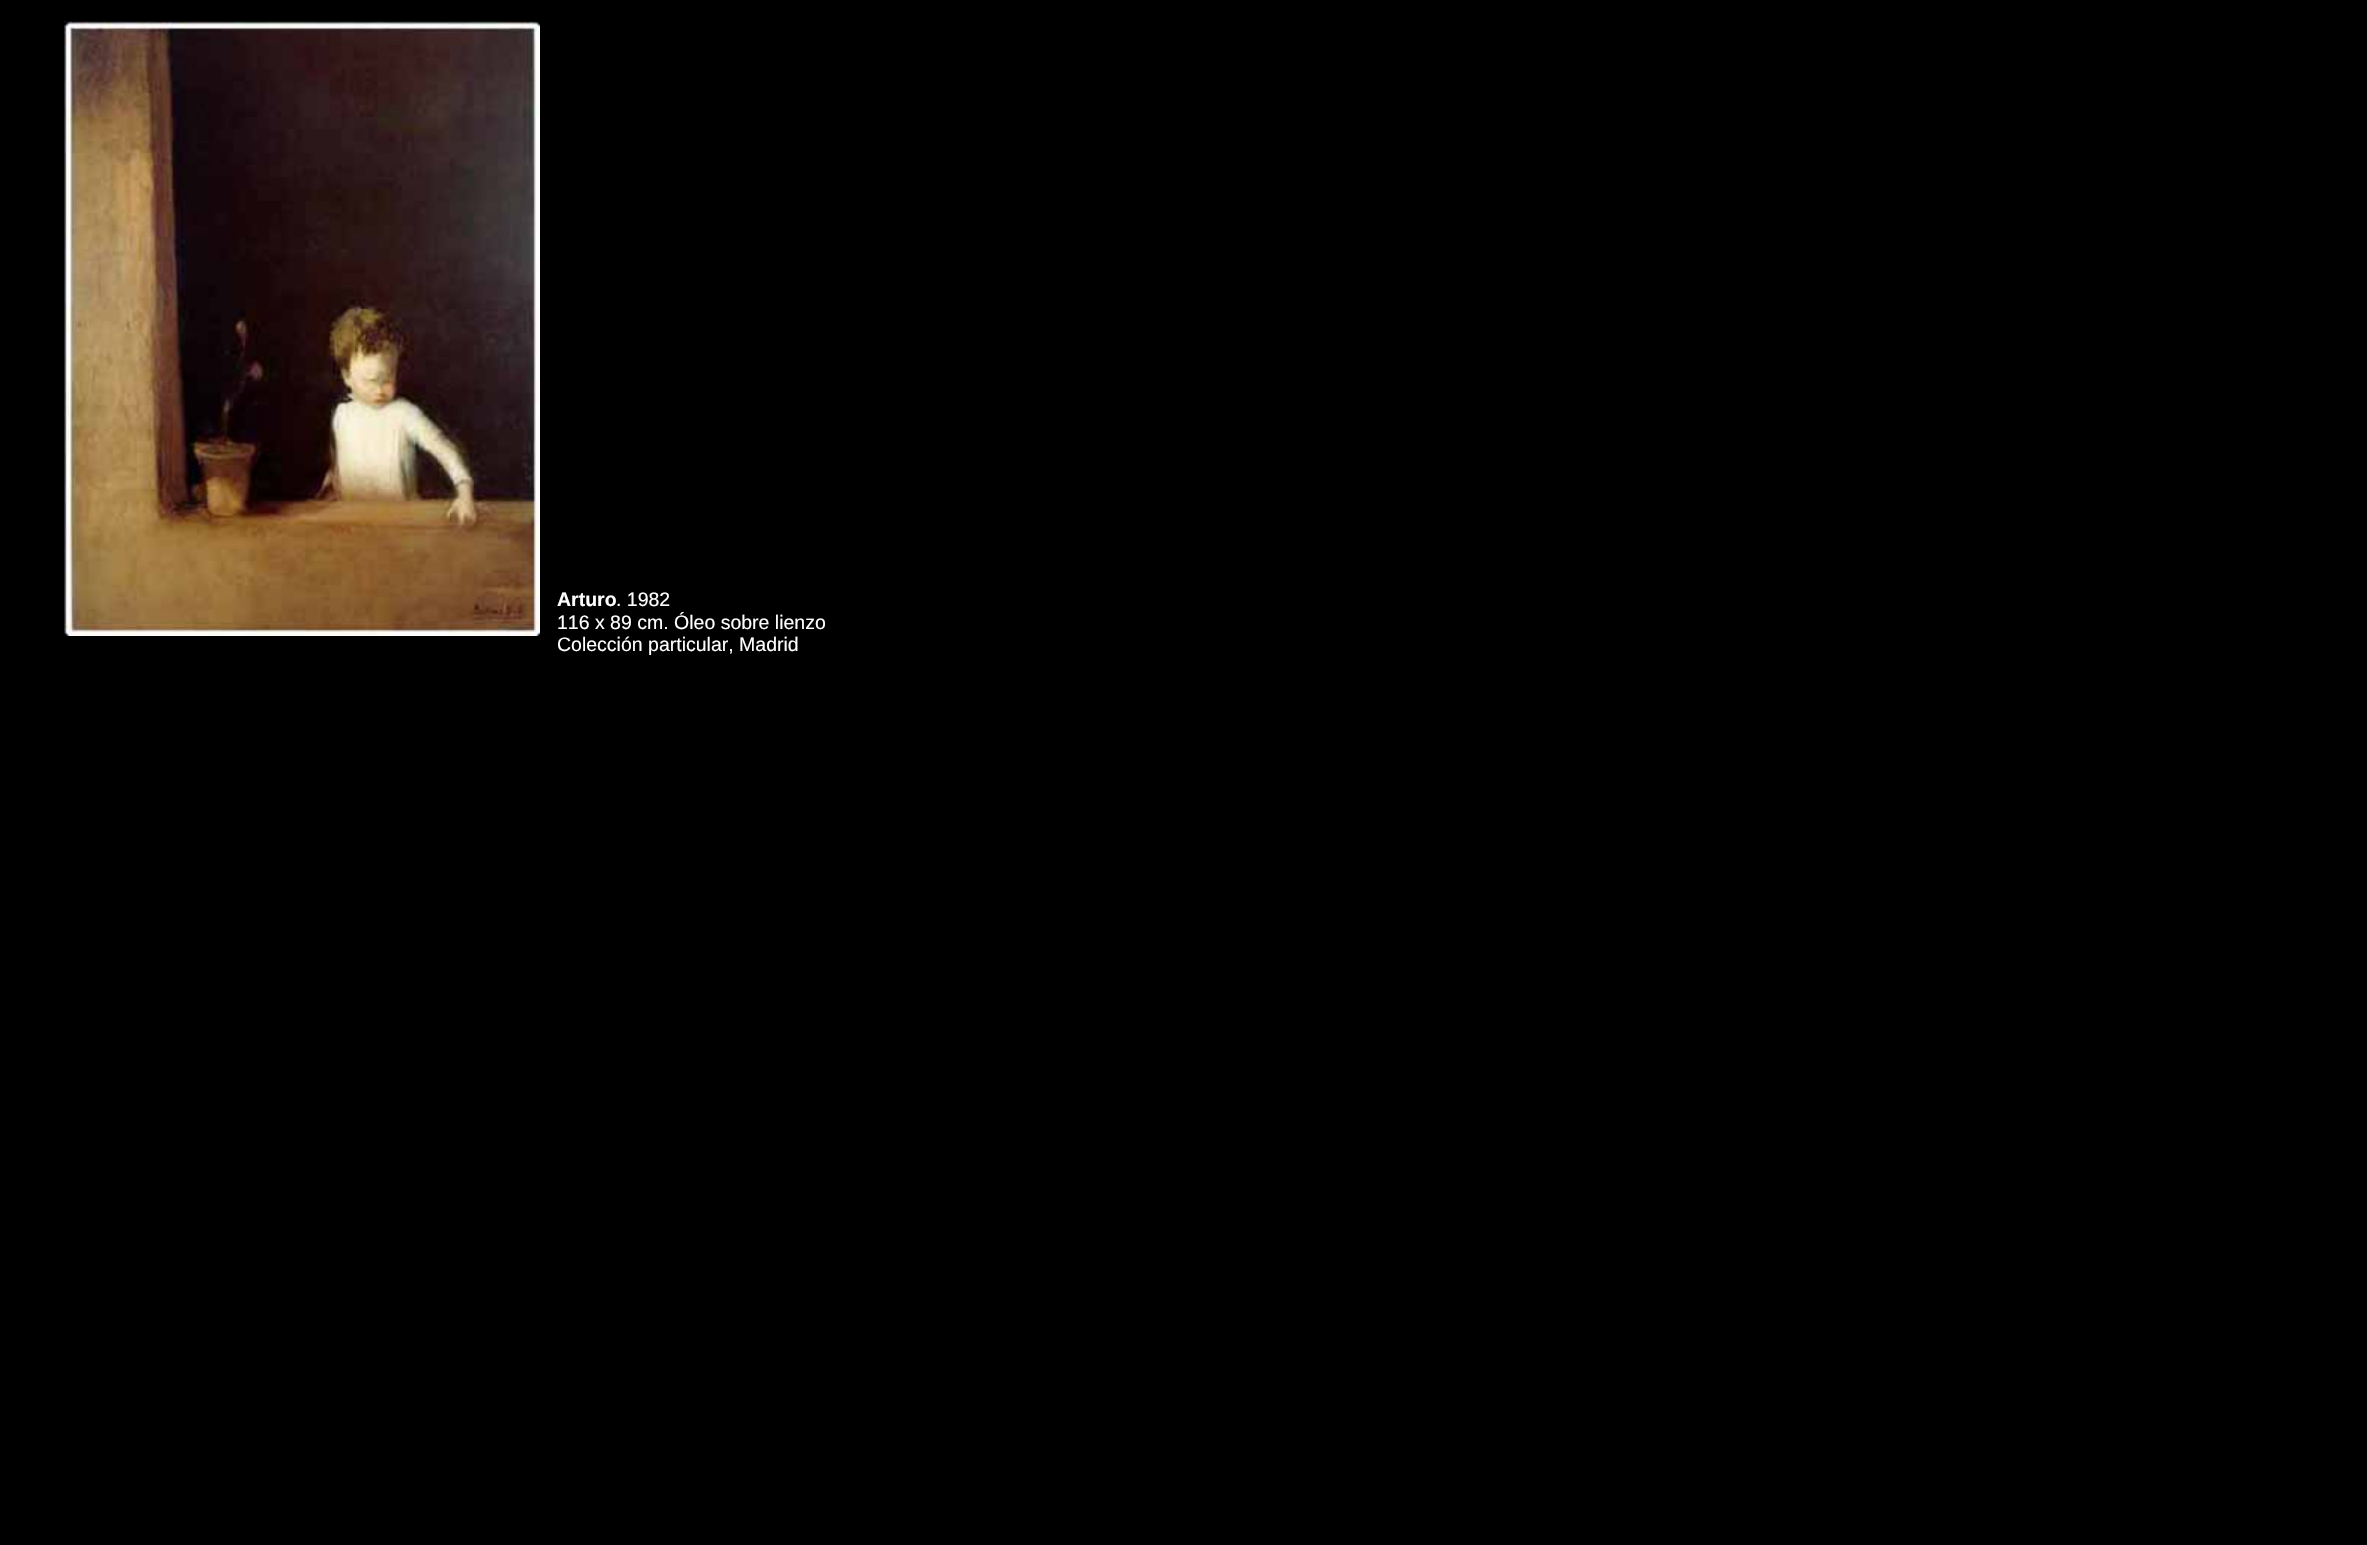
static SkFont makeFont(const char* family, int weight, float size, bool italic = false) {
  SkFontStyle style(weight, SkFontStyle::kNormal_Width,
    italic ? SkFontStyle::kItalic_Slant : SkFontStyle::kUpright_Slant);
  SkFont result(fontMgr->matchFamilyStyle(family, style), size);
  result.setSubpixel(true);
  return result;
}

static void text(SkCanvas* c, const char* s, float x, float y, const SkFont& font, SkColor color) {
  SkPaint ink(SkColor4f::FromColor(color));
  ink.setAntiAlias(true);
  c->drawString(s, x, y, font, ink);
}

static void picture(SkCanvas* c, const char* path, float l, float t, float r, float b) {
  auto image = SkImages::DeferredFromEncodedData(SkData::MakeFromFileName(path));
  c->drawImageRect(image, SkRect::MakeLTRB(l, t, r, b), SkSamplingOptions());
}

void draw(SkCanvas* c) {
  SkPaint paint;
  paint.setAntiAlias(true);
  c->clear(0xff000000);
  picture(c, "img_01.png", 64, 21, 540, 636);
  SkFont face1 = makeFont("Liberation Sans", 700, 19.5f);
  text(c, "Arturo", 557, 606, face1, 0xffffffff);
  SkFont face2 = makeFont("Liberation Sans", 400, 19.5f);
  text(c, ". 1982", 616, 606, face2, 0xffffffff);
  text(c, "116 x 89 cm. Óleo sobre lienzo", 557, 629, face2, 0xffffffff);
  text(c, "Colección particular, Madrid", 557, 651, face2, 0xffffffff);
}
